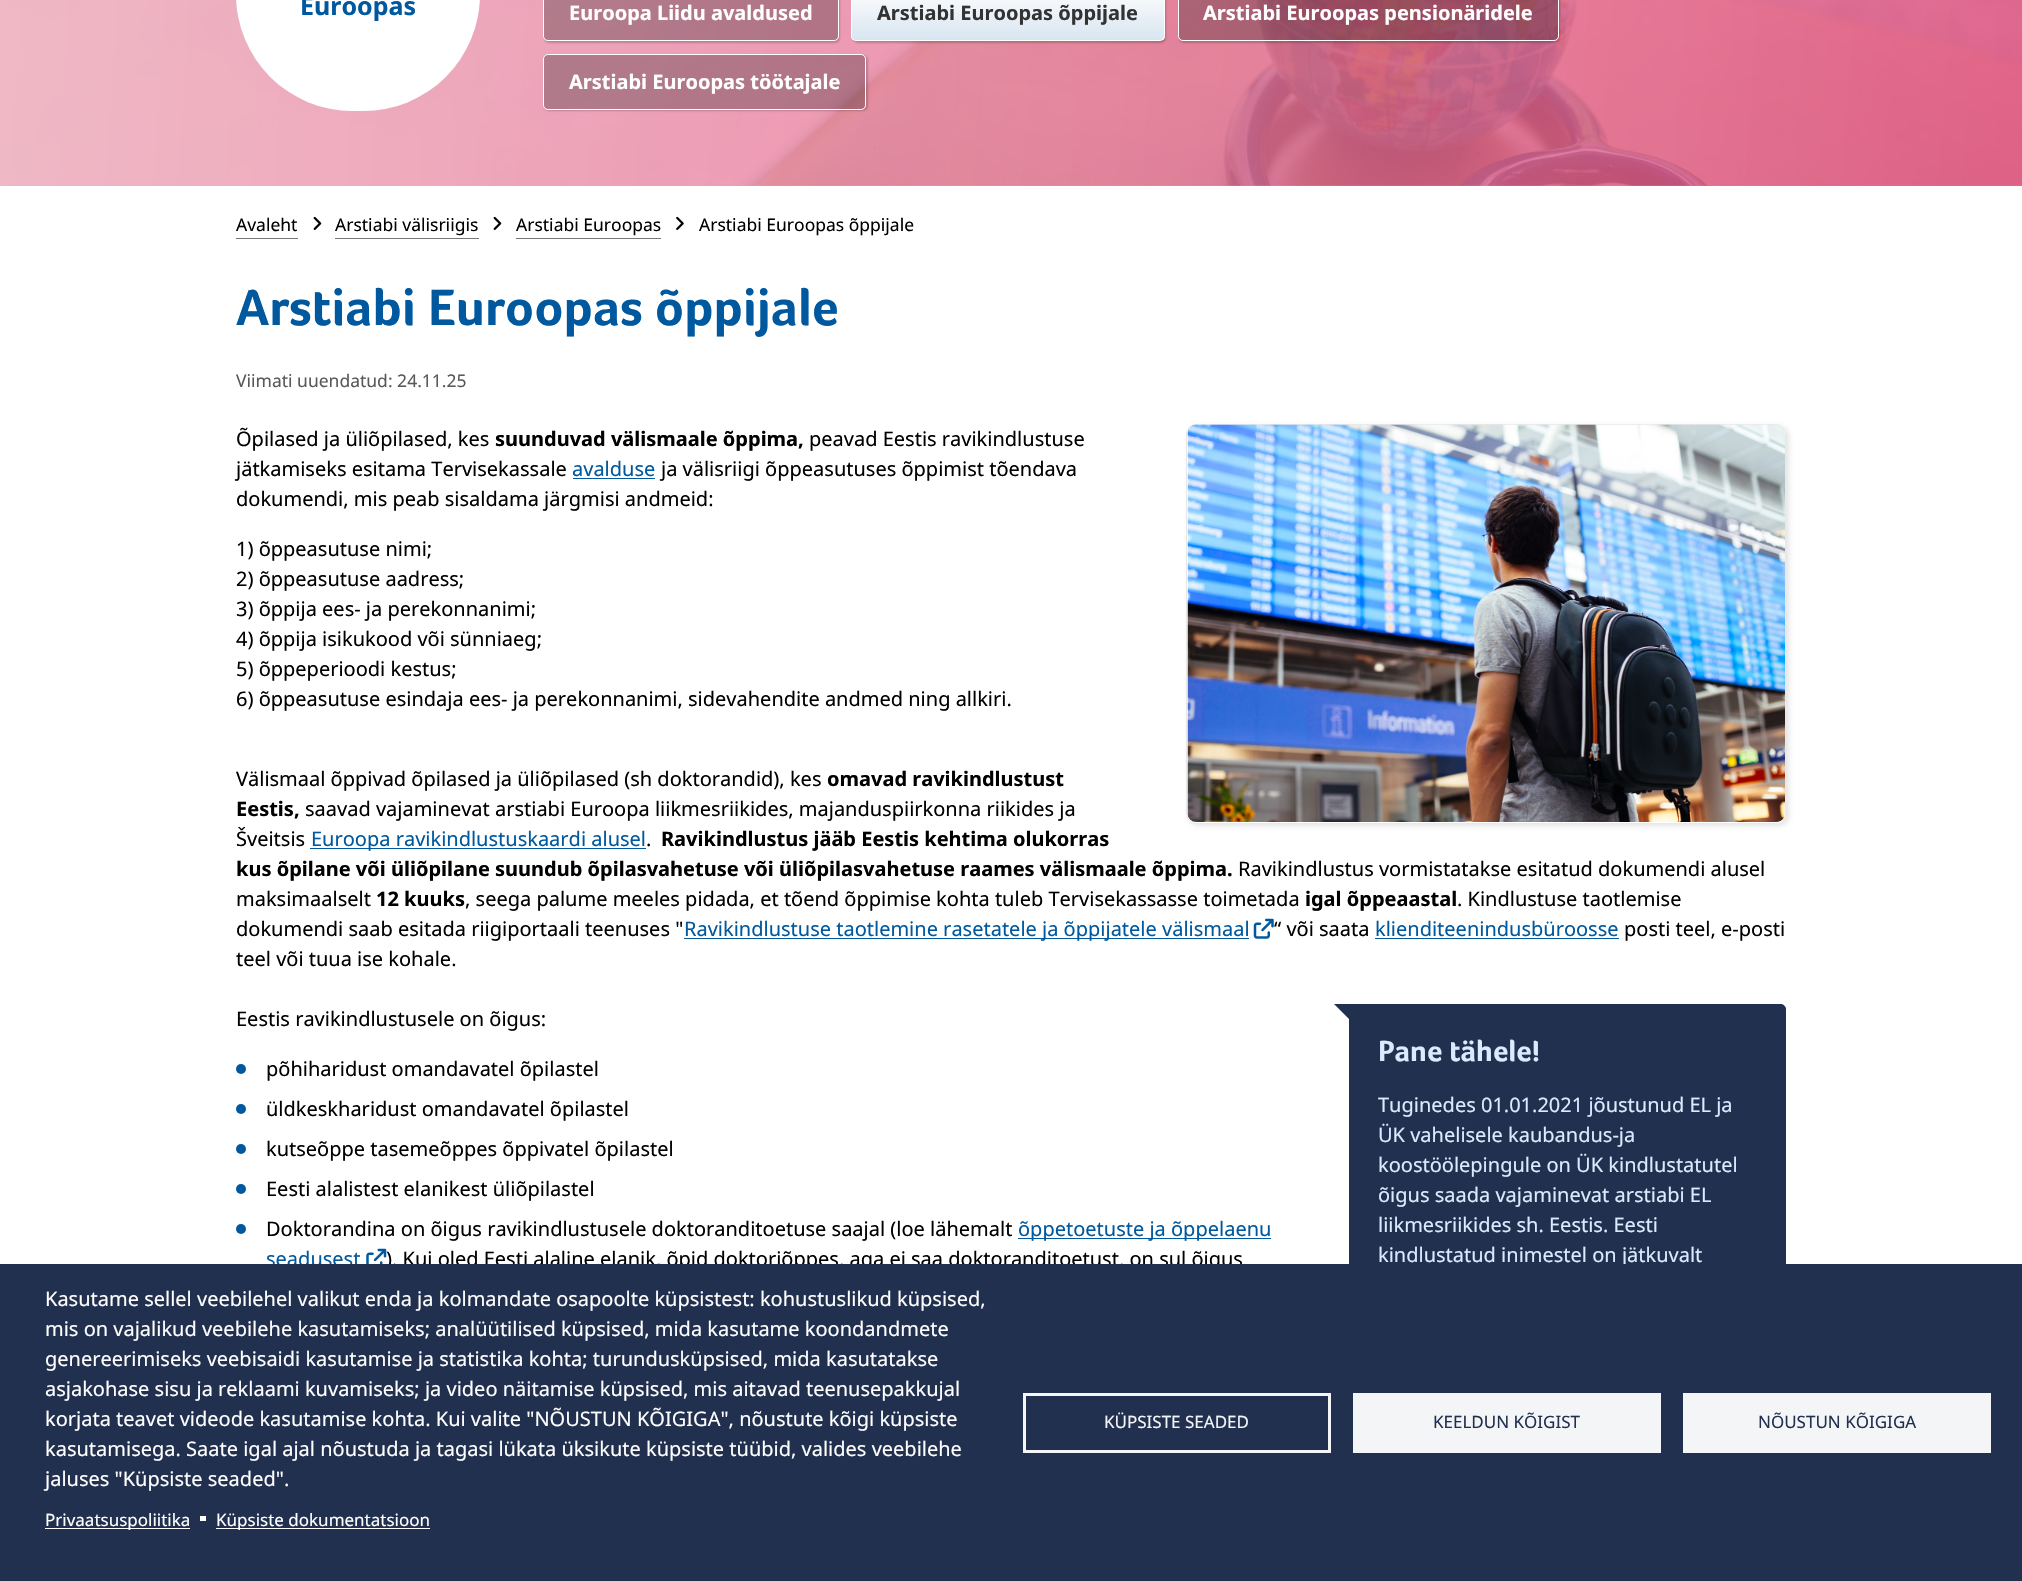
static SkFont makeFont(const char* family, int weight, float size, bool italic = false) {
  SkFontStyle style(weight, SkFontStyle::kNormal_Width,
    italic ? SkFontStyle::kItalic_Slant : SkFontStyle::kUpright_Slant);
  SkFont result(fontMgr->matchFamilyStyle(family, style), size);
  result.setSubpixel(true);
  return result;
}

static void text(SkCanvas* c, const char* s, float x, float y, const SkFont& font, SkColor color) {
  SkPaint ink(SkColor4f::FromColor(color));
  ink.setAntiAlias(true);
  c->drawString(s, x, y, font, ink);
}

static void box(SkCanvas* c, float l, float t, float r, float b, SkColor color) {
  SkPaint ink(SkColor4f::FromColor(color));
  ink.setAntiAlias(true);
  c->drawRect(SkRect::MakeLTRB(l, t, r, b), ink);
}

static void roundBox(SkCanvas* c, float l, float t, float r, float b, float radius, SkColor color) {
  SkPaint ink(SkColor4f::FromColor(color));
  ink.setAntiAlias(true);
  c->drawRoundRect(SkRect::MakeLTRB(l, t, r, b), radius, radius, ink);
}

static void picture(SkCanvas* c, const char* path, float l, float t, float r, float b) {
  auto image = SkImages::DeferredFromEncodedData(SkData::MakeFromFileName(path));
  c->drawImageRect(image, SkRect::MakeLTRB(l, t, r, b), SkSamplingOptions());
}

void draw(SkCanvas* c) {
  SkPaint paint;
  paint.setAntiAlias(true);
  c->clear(0xffffffff);
  picture(c, "img_01.png", 0, 0, 2022, 186);
  {
    const SkColor colors[] = {0xcceb5285, 0xcceba7b8};
    const float stops[] = {0, 1};
    const SkPoint ends[] = {{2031, 60}, {-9, -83}};
    paint.setShader(SkGradientShader::MakeLinear(ends, colors, stops, 2, SkTileMode::kClamp));
    paint.setAlpha(255);
  }
  c->drawRect(SkRect::MakeLTRB(0, 0, 2022, 186), paint);
  roundBox(c, 236, -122, 480, 111, 121.5f, 0xffffffff);
  SkFont face1 = makeFont("Noto Sans", 700, 25);
  text(c, "Euroopas", 300, 15, face1, 0xff00599e);
  c->save();
  c->clipPath(SkPathBuilder(SkPathFillType::kEvenOdd).moveTo(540, 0).lineTo(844, 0).lineTo(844, 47).lineTo(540, 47).close().moveTo(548, -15).lineTo(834, -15).cubicTo(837, -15, 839, -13, 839, -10).lineTo(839, 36).cubicTo(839, 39, 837, 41, 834, 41).lineTo(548, 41).cubicTo(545, 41, 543, 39, 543, 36).lineTo(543, -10).cubicTo(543, -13, 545, -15, 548, -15).close().detach(), true);
  paint.setShader(nullptr);
  paint.setColor(0x33000000);
  paint.setMaskFilter(SkMaskFilter::MakeBlur(kNormal_SkBlurStyle, 1));
  c->drawRoundRect(SkRect::MakeLTRB(544, -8, 840, 43), 5, 5, paint);
  paint.setMaskFilter(nullptr);
  c->restore();
  paint.setColor(0x40000000);
  c->drawRoundRect(SkRect::MakeLTRB(543.5f, -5.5f, 838.5f, 40.5f), 4.5f, 4.5f, paint);
  paint.setStyle(SkPaint::kStroke_Style);
  paint.setStrokeWidth(1);
  paint.setColor(0xffffffff);
  c->drawRoundRect(SkRect::MakeLTRB(543.5f, -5.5f, 838.5f, 40.5f), 4.5f, 4.5f, paint);
  SkFont face2 = makeFont("Noto Sans", 700, 20);
  text(c, "Euroopa Liidu avaldused", 569, 20, face2, 0xffffffff);
  paint.setStyle(SkPaint::kFill_Style);
  paint.setColor(0x33000000);
  paint.setMaskFilter(SkMaskFilter::MakeBlur(kNormal_SkBlurStyle, 1));
  c->drawRoundRect(SkRect::MakeLTRB(853, -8, 1166, 43), 5, 5, paint);
  paint.setMaskFilter(nullptr);
  c->save();
  c->clipPath(SkPathBuilder().moveTo(856, -15).lineTo(1160, -15).cubicTo(1163, -15, 1165, -13, 1165, -10).lineTo(1165, 36).cubicTo(1165, 39, 1163, 41, 1160, 41).lineTo(856, 41).cubicTo(853, 41, 851, 39, 851, 36).lineTo(851, -10).cubicTo(851, -13, 853, -15, 856, -15).close().detach(), true);
  {
    const SkColor colors[] = {0xffffffff, 0xffd8e5f0};
    const float stops[] = {0, 1};
    const SkPoint ends[] = {{1008, -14}, {1008, 40}};
    paint.setShader(SkGradientShader::MakeLinear(ends, colors, stops, 2, SkTileMode::kClamp));
    paint.setAlpha(255);
  }
  c->drawRect(SkRect::MakeLTRB(851, 0, 1165, 40), paint);
  c->restore();
  paint.setStyle(SkPaint::kStroke_Style);
  paint.setShader(nullptr);
  paint.setColor(0xffffffff);
  c->drawRoundRect(SkRect::MakeLTRB(851.5f, -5.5f, 1164.5f, 40.5f), 4.5f, 4.5f, paint);
  text(c, "Arstiabi Euroopas õppijale", 877, 20, face2, 0xff333333);
  c->save();
  c->clipPath(SkPathBuilder(SkPathFillType::kEvenOdd).moveTo(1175, 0).lineTo(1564, 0).lineTo(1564, 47).lineTo(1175, 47).close().moveTo(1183, -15).lineTo(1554, -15).cubicTo(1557, -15, 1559, -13, 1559, -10).lineTo(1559, 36).cubicTo(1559, 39, 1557, 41, 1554, 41).lineTo(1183, 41).cubicTo(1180, 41, 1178, 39, 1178, 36).lineTo(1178, -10).cubicTo(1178, -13, 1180, -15, 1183, -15).close().detach(), true);
  paint.setStyle(SkPaint::kFill_Style);
  paint.setColor(0x33000000);
  paint.setMaskFilter(SkMaskFilter::MakeBlur(kNormal_SkBlurStyle, 1));
  c->drawRoundRect(SkRect::MakeLTRB(1179, -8, 1560, 43), 5, 5, paint);
  paint.setMaskFilter(nullptr);
  c->restore();
  paint.setColor(0x40000000);
  c->drawRoundRect(SkRect::MakeLTRB(1178.5f, -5.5f, 1558.5f, 40.5f), 4.5f, 4.5f, paint);
  paint.setStyle(SkPaint::kStroke_Style);
  paint.setColor(0xffffffff);
  c->drawRoundRect(SkRect::MakeLTRB(1178.5f, -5.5f, 1558.5f, 40.5f), 4.5f, 4.5f, paint);
  text(c, "Arstiabi Euroopas pensionäridele", 1203, 20, face2, 0xffffffff);
  c->save();
  c->clipPath(SkPathBuilder(SkPathFillType::kEvenOdd).moveTo(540, 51).lineTo(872, 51).lineTo(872, 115).lineTo(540, 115).close().moveTo(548, 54).lineTo(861, 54).cubicTo(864, 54, 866, 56, 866, 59).lineTo(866, 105).cubicTo(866, 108, 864, 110, 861, 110).lineTo(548, 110).cubicTo(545, 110, 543, 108, 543, 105).lineTo(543, 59).cubicTo(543, 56, 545, 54, 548, 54).close().detach(), true);
  paint.setStyle(SkPaint::kFill_Style);
  paint.setColor(0x33000000);
  paint.setMaskFilter(SkMaskFilter::MakeBlur(kNormal_SkBlurStyle, 1));
  c->drawRoundRect(SkRect::MakeLTRB(544, 55, 868, 111), 5, 5, paint);
  paint.setMaskFilter(nullptr);
  c->restore();
  paint.setColor(0x40000000);
  c->drawRoundRect(SkRect::MakeLTRB(543.5f, 54.5f, 865.5f, 109.5f), 4.5f, 4.5f, paint);
  paint.setStyle(SkPaint::kStroke_Style);
  paint.setColor(0xffffffff);
  c->drawRoundRect(SkRect::MakeLTRB(543.5f, 54.5f, 865.5f, 109.5f), 4.5f, 4.5f, paint);
  text(c, "Arstiabi Euroopas töötajale", 569, 89, face2, 0xffffffff);
  box(c, 236, 238, 298, 239, 0xff757575);
  SkFont face3 = makeFont("Noto Sans", 400, 17.5f);
  text(c, "Avaleht", 236, 231, face3, 0xff000000);
  picture(c, "img_02.png", 313, 216, 322, 230);
  box(c, 335, 238, 479, 239, 0xff757575);
  text(c, "Arstiabi välisriigis", 335, 231, face3, 0xff000000);
  picture(c, "img_02.png", 493, 216, 502, 230);
  box(c, 516, 238, 661, 239, 0xff757575);
  text(c, "Arstiabi Euroopas", 516, 231, face3, 0xff000000);
  picture(c, "img_03.png", 676, 216, 684, 230);
  text(c, "Arstiabi Euroopas õppijale", 699, 231, face3, 0xff000000);
  SkFont face4 = makeFont("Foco", 700, 52.5f);
  text(c, "Arstiabi Euroopas õppijale", 236, 325, face4, 0xff00599e);
  text(c, "Viimati uuendatud: 24.11.25", 236, 387, face3, 0xff595959);
  c->save();
  c->clipPath(SkPathBuilder(SkPathFillType::kEvenOdd).moveTo(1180, 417).lineTo(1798, 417).lineTo(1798, 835).lineTo(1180, 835).close().moveTo(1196, 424).lineTo(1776, 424).cubicTo(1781.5f, 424, 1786, 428.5f, 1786, 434).lineTo(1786, 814).cubicTo(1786, 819.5f, 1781.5f, 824, 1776, 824).lineTo(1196, 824).cubicTo(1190.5f, 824, 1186, 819.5f, 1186, 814).lineTo(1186, 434).cubicTo(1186, 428.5f, 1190.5f, 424, 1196, 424).close().detach(), true);
  paint.setStyle(SkPaint::kFill_Style);
  paint.setColor(0x1a000000);
  paint.setMaskFilter(SkMaskFilter::MakeBlur(kNormal_SkBlurStyle, 2.5f));
  c->drawRoundRect(SkRect::MakeLTRB(1189, 426, 1789, 826), 10, 10, paint);
  paint.setMaskFilter(nullptr);
  c->restore();
  paint.setStyle(SkPaint::kStroke_Style);
  paint.setColor(0xffe8e8e8);
  c->drawRoundRect(SkRect::MakeLTRB(1186.5f, 424.5f, 1785.5f, 823.5f), 9.5f, 9.5f, paint);
  picture(c, "img_04.png", 1187, 424, 1785, 822);
  SkFont face5 = makeFont("Noto Sans", 400, 20);
  text(c, "Õpilased ja üliõpilased, kes", 236, 446, face5, 0xff000000);
  text(c, "suunduvad välismaale õppima,", 495, 446, face2, 0xff000000);
  text(c, "peavad Eestis ravikindlustuse", 809, 446, face5, 0xff000000);
  text(c, "jätkamiseks esitama Tervisekassale", 236, 476, face5, 0xff000000);
  text(c, "avalduse", 572, 476, face5, 0xff00599e);
  box(c, 573, 478, 655, 479, 0xff00599e);
  text(c, "ja välisriigi õppeasutuses õppimist tõendava", 661, 476, face5, 0xff000000);
  text(c, "dokumendi, mis peab sisaldama järgmisi andmeid:", 236, 506, face5, 0xff000000);
  text(c, "1) õppeasutuse nimi;", 236, 556, face5, 0xff000000);
  text(c, "2) õppeasutuse aadress;", 236, 586, face5, 0xff000000);
  text(c, "3) õppija ees- ja perekonnanimi;", 236, 616, face5, 0xff000000);
  text(c, "4) õppija isikukood või sünniaeg;", 236, 646, face5, 0xff000000);
  text(c, "5) õppeperioodi kestus;", 236, 676, face5, 0xff000000);
  text(c, "6) õppeasutuse esindaja ees- ja perekonnanimi, sidevahendite andmed ning allkiri.", 236, 706, face5, 0xff000000);
  text(c, "Välismaal õppivad õpilased ja üliõpilased (sh doktorandid), kes", 236, 786, face5, 0xff000000);
  text(c, "omavad ravikindlustust", 827, 786, face2, 0xff000000);
  text(c, "Eestis,", 236, 816, face2, 0xff000000);
  text(c, "saavad vajaminevat arstiabi Euroopa liikmesriikides, majanduspiirkonna riikides ja", 305, 816, face5, 0xff000000);
  text(c, "Šveitsis", 236, 846, face5, 0xff000000);
  box(c, 310, 848, 646, 849, 0xff00599e);
  text(c, "Euroopa ravikindlustuskaardi alusel", 311, 846, face5, 0xff00599e);
  text(c, ".", 646, 846, face5, 0xff000000);
  text(c, "Ravikindlustus jääb Eestis kehtima olukorras", 661, 846, face2, 0xff000000);
  text(c, "kus õpilane või üliõpilane suundub õpilasvahetuse või üliõpilasvahetuse raames välismaale õppima.", 236, 876, face2, 0xff000000);
  text(c, "Ravikindlustus vormistatakse esitatud dokumendi alusel", 1238, 876, face5, 0xff000000);
  text(c, "maksimaalselt", 236, 906, face5, 0xff000000);
  text(c, "12 kuuks", 376, 906, face2, 0xff000000);
  text(c, ", seega palume meeles pidada, et tõend õppimise kohta tuleb Tervisekassasse toimetada", 465, 906, face5, 0xff000000);
  text(c, "igal õppeaastal", 1305, 906, face2, 0xff000000);
  text(c, ". Kindlustuse taotlemise", 1457, 906, face5, 0xff000000);
  text(c, "dokumendi saab esitada riigiportaali teenuses \"", 236, 936, face5, 0xff000000);
  box(c, 684, 938, 1249, 939, 0xff00599e);
  text(c, "Ravikindlustuse taotlemine rasetatele ja õppijatele välismaal", 684, 936, face5, 0xff00599e);
  picture(c, "img_05.png", 1253, 918, 1274, 939);
  text(c, "“ või saata", 1274, 936, face5, 0xff000000);
  text(c, "klienditeenindusbüroosse", 1375, 936, face5, 0xff00599e);
  box(c, 1375, 938, 1619, 939, 0xff00599e);
  text(c, "posti teel, e-posti", 1624, 936, face5, 0xff000000);
  text(c, "teel või tuua ise kohale.", 236, 966, face5, 0xff000000);
  text(c, "Eestis ravikindlustusele on õigus:", 236, 1026, face5, 0xff000000);
  paint.setStyle(SkPaint::kFill_Style);
  paint.setColor(0xff00599e);
  c->drawCircle(241, 1069, 5, paint);
  text(c, "põhiharidust omandavatel õpilastel", 266, 1076, face5, 0xff000000);
  c->drawCircle(241, 1109, 5, paint);
  text(c, "üldkeskharidust omandavatel õpilastel", 266, 1116, face5, 0xff000000);
  c->drawCircle(241, 1149, 5, paint);
  text(c, "kutseõppe tasemeõppes õppivatel õpilastel", 266, 1156, face5, 0xff000000);
  c->drawCircle(241, 1189, 5, paint);
  text(c, "Eesti alalistest elanikest üliõpilastel", 266, 1196, face5, 0xff000000);
  box(c, 1018, 1238, 1271, 1239, 0xff00599e);
  text(c, "õppetoetuste ja õppelaenu", 1018, 1236, face5, 0xff00599e);
  text(c, "seadusest", 266, 1266, face5, 0xff00599e);
  picture(c, "img_06.png", 366, 1248, 387, 1264);
  c->drawCircle(241, 1229, 5, paint);
  text(c, "Doktorandina on õigus ravikindlustusele doktoranditoetuse saajal (loe lähemalt", 266, 1236, face5, 0xff000000);
  text(c, "). Kui oled Eesti alaline elanik, õpid doktoriõppes, aga ei saa doktoranditoetust, on sul õigus", 386, 1266, face5, 0xff000000);
  paint.setColor(0xff21304f);
  c->drawPath(SkPathBuilder().moveTo(1349.5f, 1004.5f).lineTo(1781, 1004.5f).cubicTo(1783.5f, 1004.5f, 1785.5f, 1006.5f, 1785.5f, 1009).lineTo(1785.5f, 1354).cubicTo(1785.5f, 1356.5f, 1783.5f, 1358.5f, 1781, 1358.5f).lineTo(1354, 1358.5f).cubicTo(1351.5f, 1358.5f, 1349.5f, 1356.5f, 1349.5f, 1354).close().detach(), paint);
  paint.setStyle(SkPaint::kStroke_Style);
  c->drawPath(SkPathBuilder().moveTo(1349.5f, 1004.5f).lineTo(1781, 1004.5f).cubicTo(1783.5f, 1004.5f, 1785.5f, 1006.5f, 1785.5f, 1009).lineTo(1785.5f, 1354).cubicTo(1785.5f, 1356.5f, 1783.5f, 1358.5f, 1781, 1358.5f).lineTo(1354, 1358.5f).cubicTo(1351.5f, 1358.5f, 1349.5f, 1356.5f, 1349.5f, 1354).close().detach(), paint);
  paint.setStyle(SkPaint::kFill_Style);
  c->drawPath(SkPathBuilder().moveTo(1350, 1004).lineTo(1350, 1020).lineTo(1334, 1004).close().detach(), paint);
  SkFont face6 = makeFont("Foco", 700, 30);
  text(c, "Pane tähele!", 1378, 1061, face6, 0xffd9ecff);
  text(c, "Tuginedes 01.01.2021 jõustunud EL ja", 1378, 1112, face5, 0xffd9ecff);
  text(c, "ÜK vahelisele kaubandus-ja", 1378, 1142, face5, 0xffd9ecff);
  text(c, "koostöölepingule on ÜK kindlustatutel", 1378, 1172, face5, 0xffd9ecff);
  text(c, "õigus saada vajaminevat arstiabi EL", 1378, 1202, face5, 0xffd9ecff);
  text(c, "liikmesriikides sh. Eestis. Eesti", 1378, 1232, face5, 0xffd9ecff);
  text(c, "kindlustatud inimestel on jätkuvalt", 1378, 1262, face5, 0xffd9ecff);
  box(c, 0, 1264, 2022, 1581, 0xff21304f);
  text(c, "Kasutame sellel veebilehel valikut enda ja kolmandate osapoolte küpsistest: kohustuslikud küpsised,", 45, 1306, face5, 0xffffffff);
  text(c, "mis on vajalikud veebilehe kasutamiseks; analüütilised küpsised, mida kasutame koondandmete", 45, 1336, face5, 0xffffffff);
  text(c, "genereerimiseks veebisaidi kasutamise ja statistika kohta; turundusküpsised, mida kasutatakse", 45, 1366, face5, 0xffffffff);
  text(c, "asjakohase sisu ja reklaami kuvamiseks; ja video näitamise küpsised, mis aitavad teenusepakkujal", 45, 1396, face5, 0xffffffff);
  text(c, "korjata teavet videode kasutamise kohta. Kui valite \"NÕUSTUN KÕIGIGA\", nõustute kõigi küpsiste", 45, 1426, face5, 0xffffffff);
  text(c, "kasutamisega. Saate igal ajal nõustuda ja tagasi lükata üksikute küpsiste tüübid, valides veebilehe", 45, 1456, face5, 0xffffffff);
  text(c, "jaluses \"Küpsiste seaded\".", 45, 1486, face5, 0xffffffff);
  box(c, 45, 1528, 190, 1529, 0xffffffff);
  SkFont face7 = makeFont("Noto Sans", 400, 17);
  text(c, "Privaatsuspoliitika", 45, 1526, face7, 0xffffffff);
  box(c, 200, 1516, 206, 1521, 0xffffffff);
  box(c, 216, 1528, 430, 1529, 0xffffffff);
  text(c, "Küpsiste dokumentatsioon", 216, 1526, face7, 0xffffffff);
  paint.setStyle(SkPaint::kStroke_Style);
  paint.setStrokeWidth(3);
  paint.setColor(0xfff4f5f6);
  c->drawRect(SkRect::MakeLTRB(1024.5f, 1394.5f, 1329.5f, 1451.5f), paint);
  text(c, "KÜPSISTE SEADED", 1104, 1428, face7, 0xfff4f5f6);
  box(c, 1353, 1393, 1661, 1453, 0xfff4f5f6);
  text(c, "KEELDUN KÕIGIST", 1433, 1428, face7, 0xff21304f);
  box(c, 1683, 1393, 1991, 1453, 0xfff4f5f6);
  text(c, "NÕUSTUN KÕIGIGA", 1758, 1428, face7, 0xff21304f);
}
